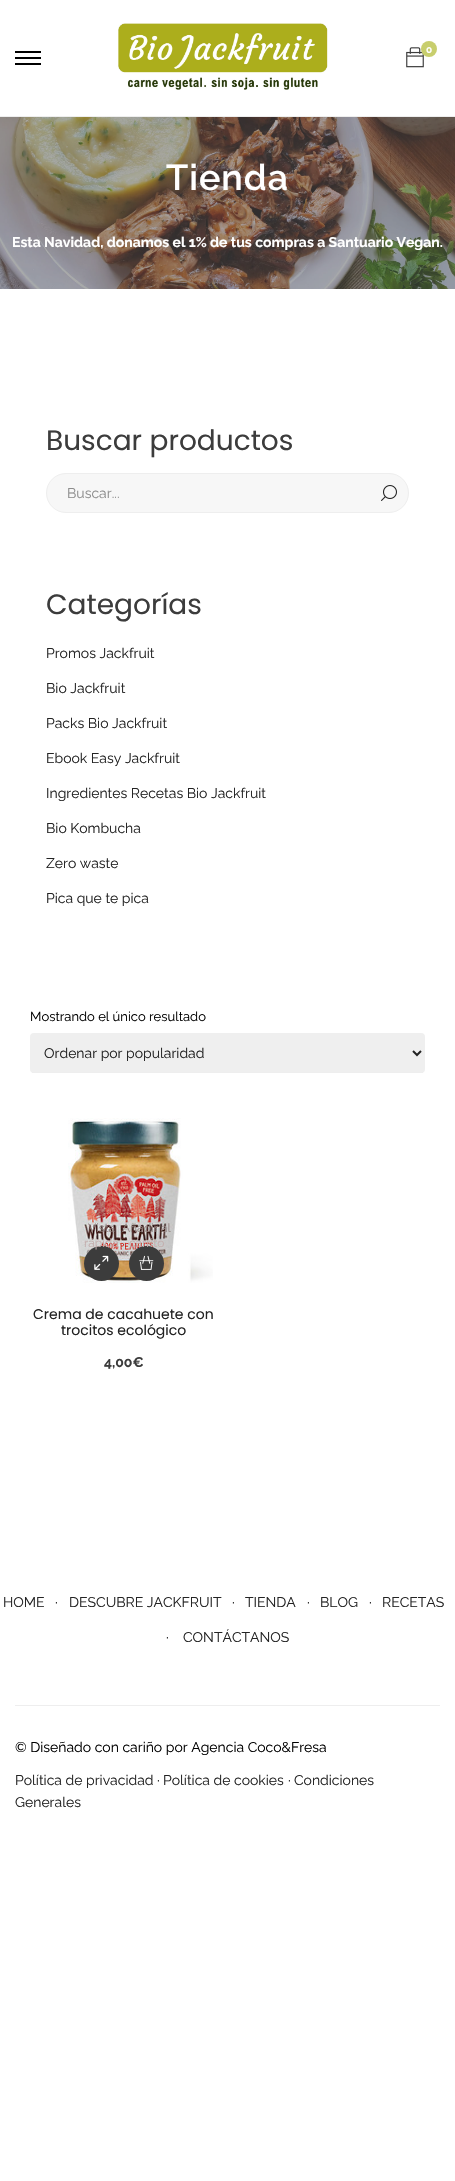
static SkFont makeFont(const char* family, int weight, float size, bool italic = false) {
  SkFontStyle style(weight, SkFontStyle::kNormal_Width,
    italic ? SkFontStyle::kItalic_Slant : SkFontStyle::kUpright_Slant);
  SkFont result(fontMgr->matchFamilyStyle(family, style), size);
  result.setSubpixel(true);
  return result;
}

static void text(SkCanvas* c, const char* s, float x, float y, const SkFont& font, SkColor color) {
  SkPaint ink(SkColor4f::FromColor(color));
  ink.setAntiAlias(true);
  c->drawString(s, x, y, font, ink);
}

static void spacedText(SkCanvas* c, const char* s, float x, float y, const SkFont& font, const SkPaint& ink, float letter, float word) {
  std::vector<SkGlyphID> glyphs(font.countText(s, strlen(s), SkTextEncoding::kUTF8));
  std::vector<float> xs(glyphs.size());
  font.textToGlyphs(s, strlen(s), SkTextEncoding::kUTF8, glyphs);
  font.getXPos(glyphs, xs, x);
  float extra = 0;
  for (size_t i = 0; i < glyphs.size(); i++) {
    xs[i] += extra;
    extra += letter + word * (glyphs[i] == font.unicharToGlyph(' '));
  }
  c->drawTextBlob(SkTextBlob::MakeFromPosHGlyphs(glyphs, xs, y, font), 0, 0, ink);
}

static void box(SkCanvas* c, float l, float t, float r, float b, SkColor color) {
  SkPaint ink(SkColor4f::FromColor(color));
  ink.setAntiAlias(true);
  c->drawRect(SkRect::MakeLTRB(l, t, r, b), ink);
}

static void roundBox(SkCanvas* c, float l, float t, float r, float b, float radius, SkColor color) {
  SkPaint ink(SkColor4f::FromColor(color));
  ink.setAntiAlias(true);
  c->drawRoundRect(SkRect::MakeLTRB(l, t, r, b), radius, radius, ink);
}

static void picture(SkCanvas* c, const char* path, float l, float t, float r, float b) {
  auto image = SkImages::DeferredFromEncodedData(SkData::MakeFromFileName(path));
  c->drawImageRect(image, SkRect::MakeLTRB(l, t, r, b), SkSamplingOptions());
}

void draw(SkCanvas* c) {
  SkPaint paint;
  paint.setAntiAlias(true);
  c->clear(0xffffffff);
  box(c, 0, 116, 455, 117, 0xffeeeeee);
  box(c, 15, 57, 41, 59, 0xff000000);
  box(c, 15, 51, 41, 53, 0xff000000);
  box(c, 15, 63, 41, 65, 0xff000000);
  picture(c, "img_01.png", 118, 23, 328, 90);
  picture(c, "img_02.png", 406, 47, 424, 68);
  paint.setColor(0xffc8ce6d);
  c->drawCircle(429, 49, 8, paint);
  SkFont face1 = makeFont("Raleway", 700, 10);
  text(c, "0", 426, 53, face1, 0xffffffff);
  picture(c, "img_03.png", 0, 117, 455, 289);
  SkFont face2 = makeFont("Raleway", 600, 36);
  paint.setColor(0xffffffff);
  spacedText(c, "Tienda", 166, 190, face2, paint, 1, 0);
  SkFont face3 = makeFont("Raleway", 700, 14);
  text(c, "Esta Navidad, donamos el 1% de tus compras a Santuario Vegan.", 12, 247, face3, 0xffffffff);
  SkFont face4 = makeFont("Poppins", 400, 28);
  text(c, "Buscar productos", 46, 450, face4, 0xff3c3c3c);
  paint.setColor(0xfff7f7f7);
  c->drawRoundRect(SkRect::MakeLTRB(46.5f, 473.5f, 408.5f, 512.5f), 19.5f, 19.5f, paint);
  paint.setStyle(SkPaint::kStroke_Style);
  paint.setStrokeWidth(1);
  paint.setColor(0xffeeeeee);
  c->drawRoundRect(SkRect::MakeLTRB(46.5f, 473.5f, 408.5f, 512.5f), 19.5f, 19.5f, paint);
  SkFont face5 = makeFont("Raleway", 100, 14);
  text(c, "Buscar...", 67, 498, face5, 0xff8d8d8d);
  picture(c, "img_04.png", 381, 485, 397, 501);
  text(c, "Categorías", 46, 614, face4, 0xff3c3c3c);
  text(c, "Promos Jackfruit", 46, 658, face5, 0xff232323);
  text(c, "Bio Jackfruit", 46, 693, face5, 0xff232323);
  text(c, "Packs Bio Jackfruit", 46, 728, face5, 0xff232323);
  text(c, "Ebook Easy Jackfruit", 46, 763, face5, 0xff232323);
  text(c, "Ingredientes Recetas Bio Jackfruit", 46, 798, face5, 0xff232323);
  text(c, "Bio Kombucha", 46, 833, face5, 0xff232323);
  text(c, "Zero waste", 46, 868, face5, 0xff232323);
  text(c, "Pica que te pica", 46, 903, face5, 0xff232323);
  SkFont face6 = makeFont("Raleway", 100, 13);
  text(c, "Mostrando el único resultado", 30, 1021, face6, 0xff000000);
  roundBox(c, 30, 1033, 425, 1073, 4, 0xffefefef);
  box(c, 32, 1072, 423, 1073, 0xffeeeeee);
  paint.setStrokeWidth(2);
  paint.setColor(0xff232323);
  c->drawPath(SkPathBuilder().moveTo(413, 1051).lineTo(417, 1055).lineTo(421, 1051).detach(), paint);
  text(c, "Ordenar por popularidad", 44, 1058, face5, 0xff232323);
  picture(c, "img_05.png", 68, 1118, 213, 1283);
  paint.setStyle(SkPaint::kFill_Style);
  paint.setColor(0xff3c3c3c);
  c->drawCircle(101.5f, 1263.5f, 17.5f, paint);
  SkFont face7 = makeFont("Raleway", 100, 12);
  text(c, "Vista", 88, 1232, face7, 0xff8f7f7d);
  text(c, "rápida", 84, 1247, face7, 0xffc3aead);
  picture(c, "img_06.png", 94, 1255, 109, 1270);
  c->drawCircle(146.5f, 1263.5f, 17.5f, paint);
  text(c, "Añadir al", 122, 1232, face7, 0xff9a8d8b);
  text(c, "carrito", 129, 1247, face7, 0xffc3aead);
  picture(c, "img_07.png", 139, 1255, 154, 1270);
  SkFont face8 = makeFont("Poppins", 400, 14);
  text(c, "Crema de cacahuete con", 33, 1319, face8, 0xff232323);
  text(c, "trocitos ecológico", 61, 1335, face8, 0xff232323);
  text(c, "4,00€", 104, 1367, face3, 0xff3c3c3c);
  text(c, "HOME", 3, 1607, face5, 0xff232323);
  text(c, "·", 55, 1607, face5, 0xff000000);
  text(c, "DESCUBRE JACKFRUIT", 69, 1607, face5, 0xff232323);
  text(c, "·", 232, 1607, face5, 0xff000000);
  text(c, "TIENDA", 245, 1607, face5, 0xff232323);
  text(c, "·", 307, 1607, face5, 0xff000000);
  text(c, "BLOG", 320, 1607, face5, 0xff232323);
  text(c, "·", 369, 1607, face5, 0xff000000);
  text(c, "RECETAS", 382, 1607, face5, 0xff232323);
  text(c, "·", 166, 1642, face5, 0xff000000);
  text(c, "CONTÁCTANOS", 183, 1642, face5, 0xff232323);
  box(c, 15, 1705, 440, 1706, 0xffeeeeee);
  text(c, "© Diseñado con cariño por Agencia Coco&Fresa", 15, 1752, face5, 0xff000000);
  text(c, "Política de privacidad", 15, 1785, face5, 0xff232323);
  text(c, "·", 157, 1785, face5, 0xff000000);
  text(c, "Política de cookies", 163, 1785, face5, 0xff232323);
  text(c, "·", 288, 1785, face5, 0xff000000);
  text(c, "Condiciones", 294, 1785, face5, 0xff232323);
  text(c, "Generales", 15, 1807, face5, 0xff232323);
}
